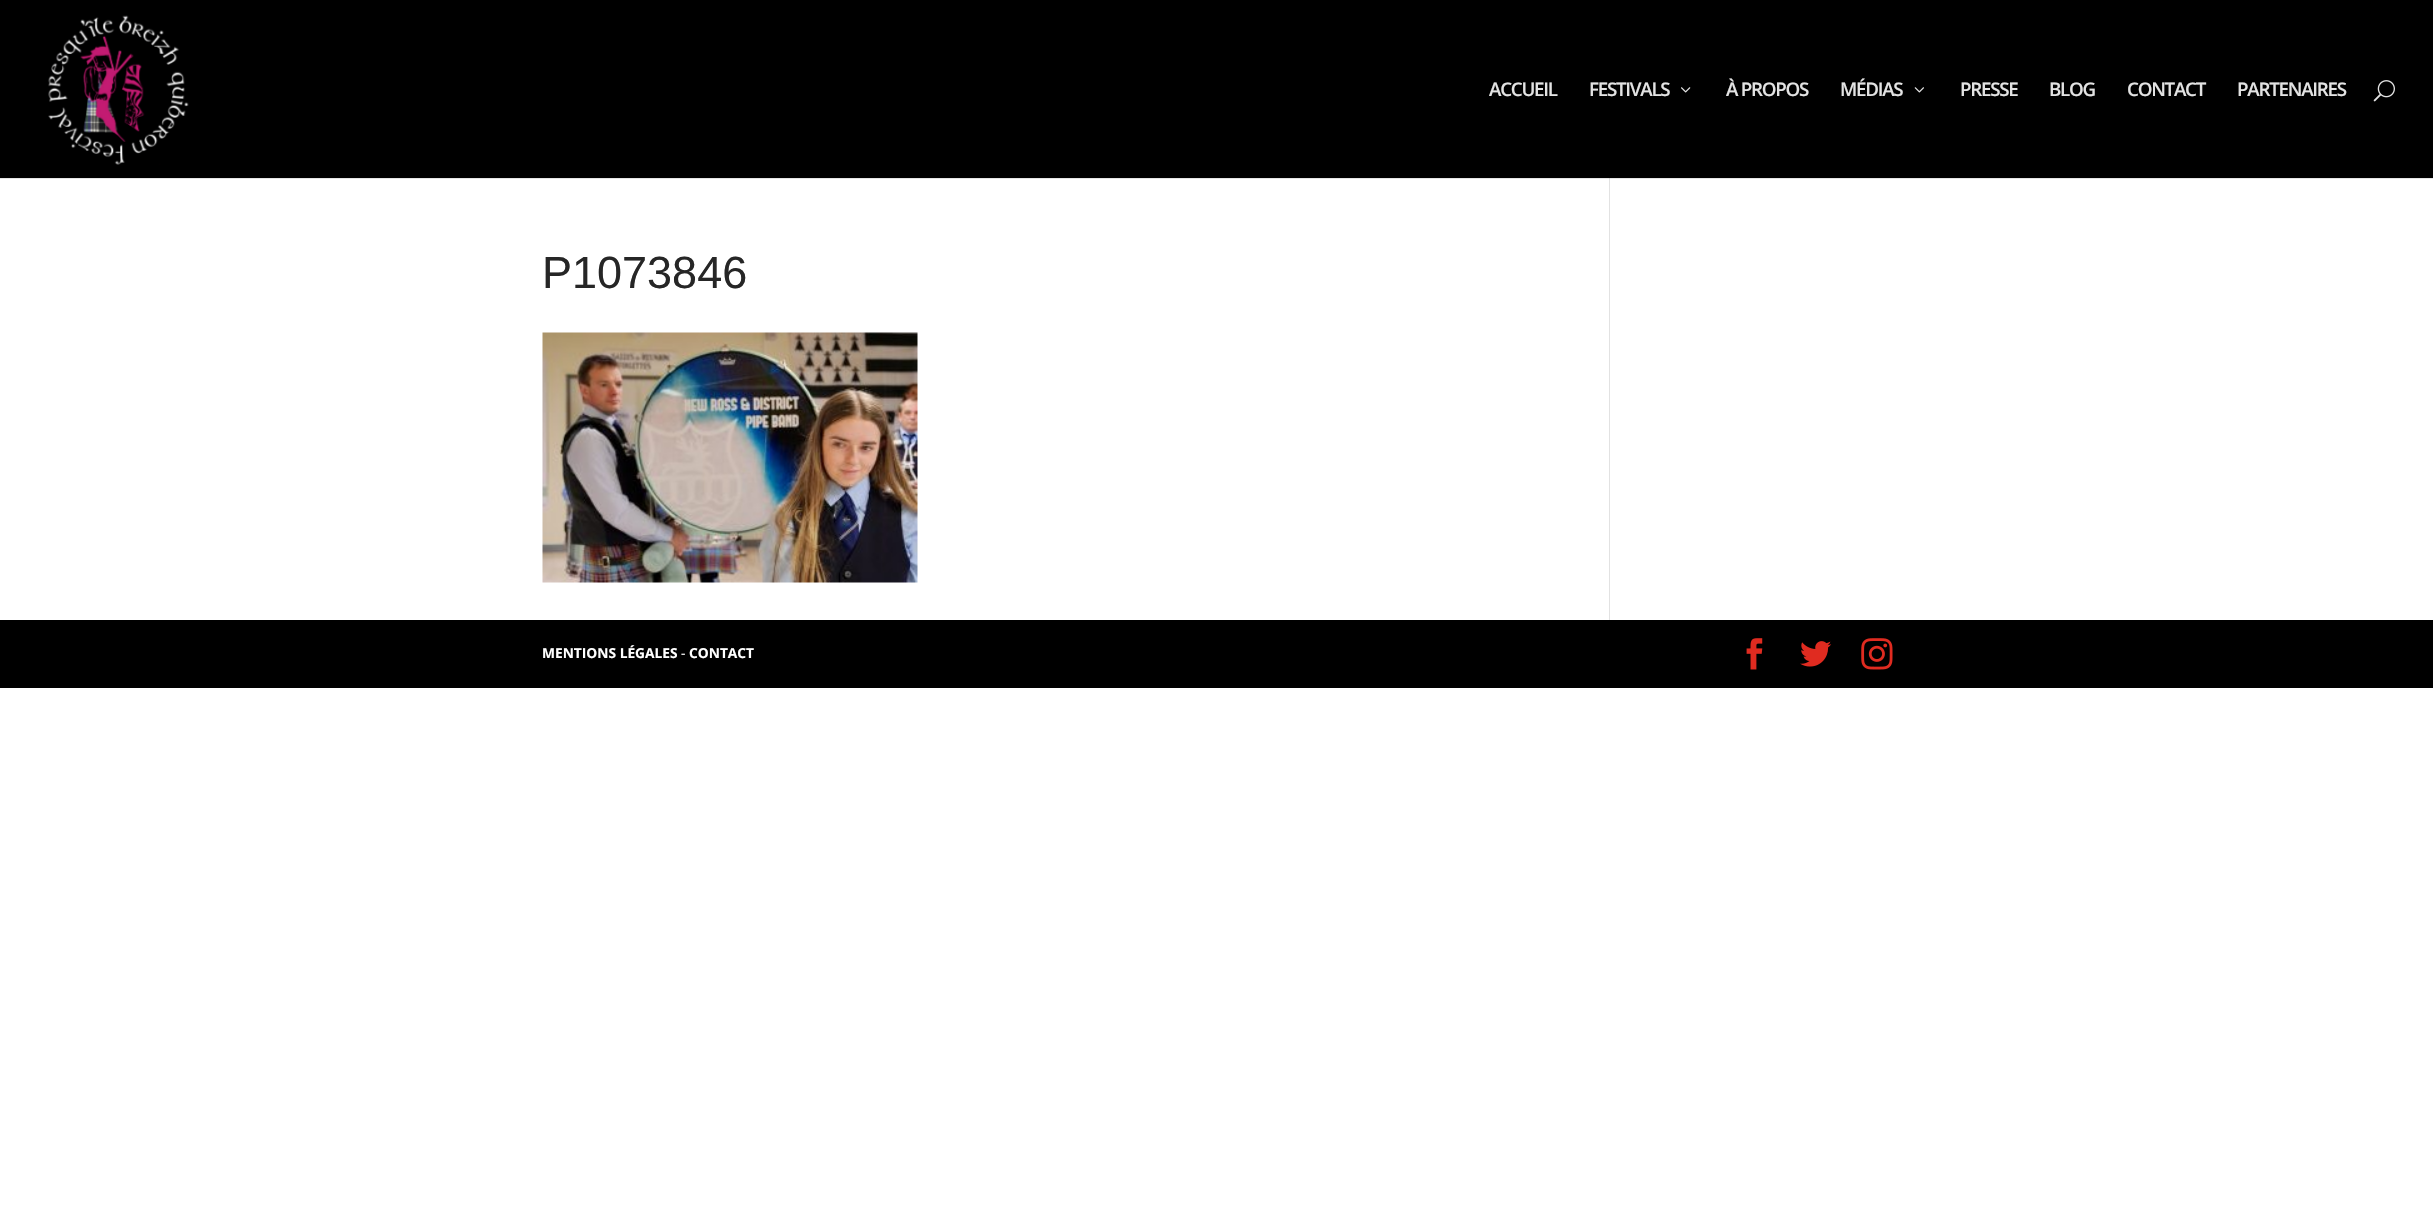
static SkFont makeFont(const char* family, int weight, float size, bool italic = false) {
  SkFontStyle style(weight, SkFontStyle::kNormal_Width,
    italic ? SkFontStyle::kItalic_Slant : SkFontStyle::kUpright_Slant);
  SkFont result(fontMgr->matchFamilyStyle(family, style), size);
  result.setSubpixel(true);
  return result;
}

static void text(SkCanvas* c, const char* s, float x, float y, const SkFont& font, SkColor color) {
  SkPaint ink(SkColor4f::FromColor(color));
  ink.setAntiAlias(true);
  c->drawString(s, x, y, font, ink);
}

static void spacedText(SkCanvas* c, const char* s, float x, float y, const SkFont& font, const SkPaint& ink, float letter, float word) {
  std::vector<SkGlyphID> glyphs(font.countText(s, strlen(s), SkTextEncoding::kUTF8));
  std::vector<float> xs(glyphs.size());
  font.textToGlyphs(s, strlen(s), SkTextEncoding::kUTF8, glyphs);
  font.getXPos(glyphs, xs, x);
  float extra = 0;
  for (size_t i = 0; i < glyphs.size(); i++) {
    xs[i] += extra;
    extra += letter + word * (glyphs[i] == font.unicharToGlyph(' '));
  }
  c->drawTextBlob(SkTextBlob::MakeFromPosHGlyphs(glyphs, xs, y, font), 0, 0, ink);
}

static void box(SkCanvas* c, float l, float t, float r, float b, SkColor color) {
  SkPaint ink(SkColor4f::FromColor(color));
  ink.setAntiAlias(true);
  c->drawRect(SkRect::MakeLTRB(l, t, r, b), ink);
}

static void picture(SkCanvas* c, const char* path, float l, float t, float r, float b) {
  auto image = SkImages::DeferredFromEncodedData(SkData::MakeFromFileName(path));
  c->drawImageRect(image, SkRect::MakeLTRB(l, t, r, b), SkSamplingOptions());
}

void draw(SkCanvas* c) {
  SkPaint paint;
  paint.setAntiAlias(true);
  c->clear(0xffffffff);
  box(c, 1609, 178, 1610, 620, 0xffe2e2e2);
  paint.setColor(0x1a000000);
  c->drawPath(SkPathBuilder().moveTo(0, 178).lineTo(0, 179).lineTo(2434, 179).lineTo(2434, 1).lineTo(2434, 178).close().detach(), paint);
  box(c, 0, 0, 2433, 178, 0xff000000);
  picture(c, "img_01.png", 48, 15, 189, 165);
  SkFont face1 = makeFont("Open Sans", 600, 18.75f);
  paint.setColor(0xffe3e3e3);
  spacedText(c, "ACCUEIL", 1489, 96, face1, paint, -1.25f, 0);
  spacedText(c, "FESTIVALS", 1589, 96, face1, paint, -1.25f, 0);
  picture(c, "img_02.png", 1681, 87, 1691, 93);
  spacedText(c, "À PROPOS", 1726, 96, face1, paint, -1.25f, 0);
  spacedText(c, "MÉDIAS", 1840, 96, face1, paint, -1.25f, 0);
  picture(c, "img_03.png", 1914, 87, 1924, 93);
  spacedText(c, "PRESSE", 1960, 96, face1, paint, -1.25f, 0);
  spacedText(c, "BLOG", 2049, 96, face1, paint, -1.25f, 0);
  spacedText(c, "CONTACT", 2127, 96, face1, paint, -1.25f, 0);
  spacedText(c, "PARTENAIRES", 2237, 96, face1, paint, -1.25f, 0);
  picture(c, "img_04.png", 2373, 80, 2395, 102);
  SkFont face2 = makeFont("Liberation Sans", 400, 45);
  text(c, "P1073846", 542, 288, face2, 0xff262626);
  picture(c, "img_05.png", 542, 332, 918, 583);
  box(c, 0, 620, 2433, 688, 0xff000000);
  SkFont face3 = makeFont("Open Sans", 700, 13.75f);
  text(c, "MENTIONS LÉGALES", 542, 658, face3, 0xffffffff);
  SkFont face4 = makeFont("Open Sans", 400, 13.75f);
  text(c, "-", 681, 658, face4, 0xffffffff);
  text(c, "CONTACT", 689, 658, face3, 0xffffffff);
  picture(c, "img_06.png", 1746, 638, 1763, 670);
  picture(c, "img_07.png", 1800, 641, 1832, 667);
  picture(c, "img_08.png", 1861, 638, 1893, 670);
}
